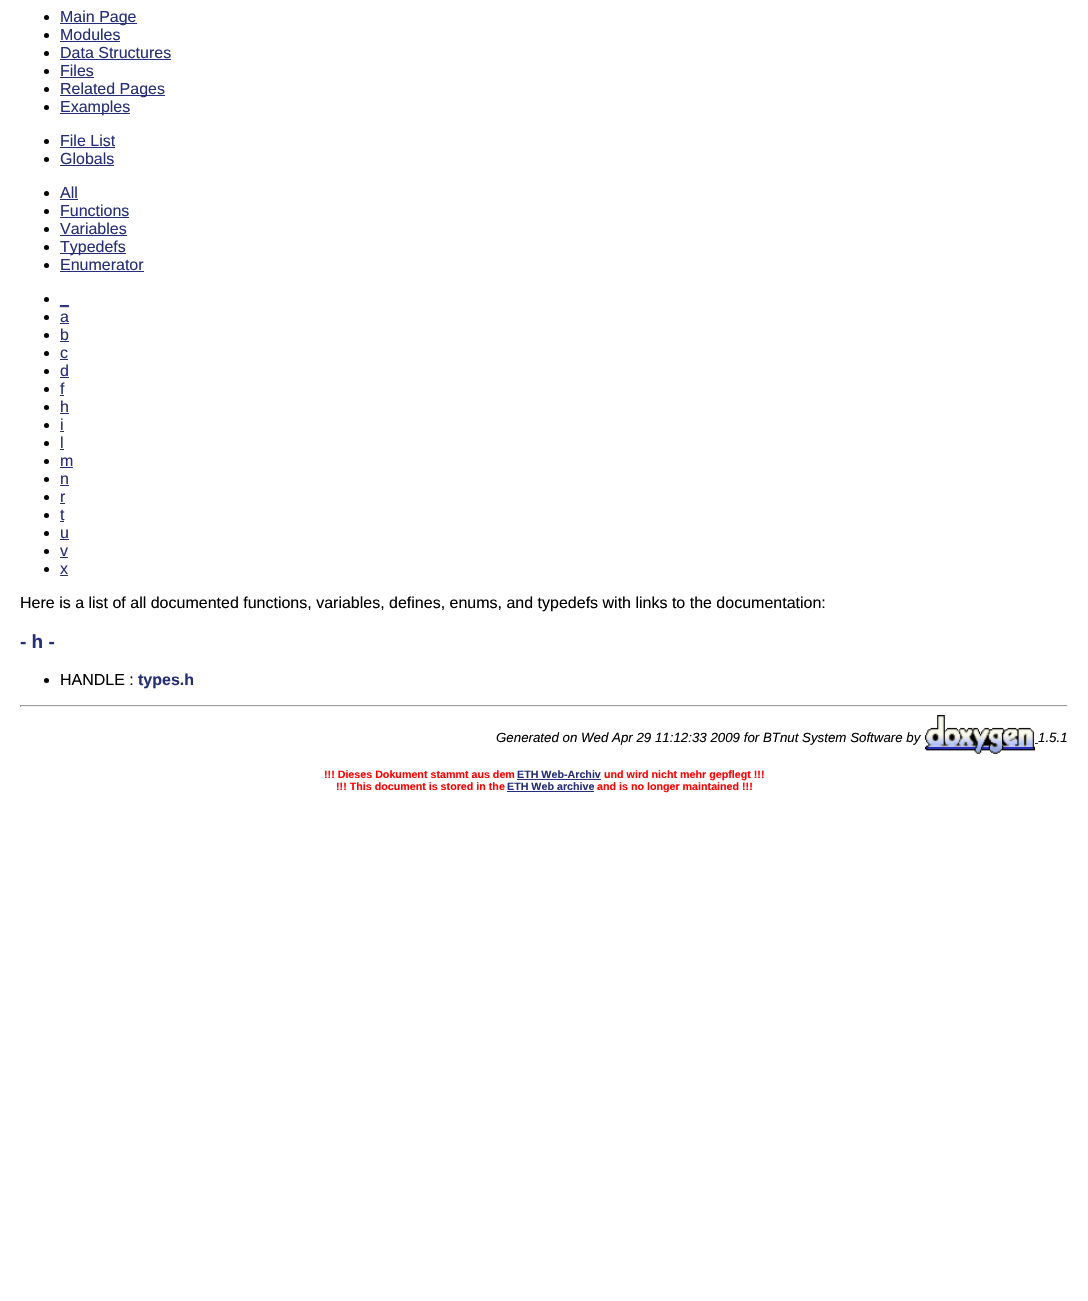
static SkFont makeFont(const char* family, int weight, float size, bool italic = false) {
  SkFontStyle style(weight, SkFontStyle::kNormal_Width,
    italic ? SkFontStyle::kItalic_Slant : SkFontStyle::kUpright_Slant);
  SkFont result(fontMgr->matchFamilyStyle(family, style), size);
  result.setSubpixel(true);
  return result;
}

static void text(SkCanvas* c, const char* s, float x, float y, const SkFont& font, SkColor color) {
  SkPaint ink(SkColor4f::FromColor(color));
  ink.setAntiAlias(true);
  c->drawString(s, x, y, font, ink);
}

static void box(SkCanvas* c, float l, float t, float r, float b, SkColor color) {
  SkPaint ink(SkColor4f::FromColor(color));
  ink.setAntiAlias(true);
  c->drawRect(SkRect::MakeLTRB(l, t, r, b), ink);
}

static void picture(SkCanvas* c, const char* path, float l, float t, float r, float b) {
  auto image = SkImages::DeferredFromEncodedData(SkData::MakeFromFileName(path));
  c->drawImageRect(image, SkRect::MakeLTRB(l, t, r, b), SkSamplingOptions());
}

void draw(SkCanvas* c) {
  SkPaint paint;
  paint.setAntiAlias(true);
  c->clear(0xffffffff);
  paint.setColor(0xff000000);
  c->drawCircle(46.5f, 17.5f, 2.5f, paint);
  box(c, 60, 23, 137, 24, 0xff252e78);
  SkFont face1 = makeFont("Liberation Sans", 400, 16);
  text(c, "Main Page", 60, 22, face1, 0xff252e78);
  c->drawCircle(46.5f, 35.5f, 2.5f, paint);
  text(c, "Modules", 60, 40, face1, 0xff252e78);
  box(c, 60, 41, 120, 42, 0xff252e78);
  c->drawCircle(46.5f, 53.5f, 2.5f, paint);
  text(c, "Data Structures", 60, 58, face1, 0xff252e78);
  box(c, 60, 59, 171, 60, 0xff252e78);
  c->drawCircle(46.5f, 71.5f, 2.5f, paint);
  text(c, "Files", 60, 76, face1, 0xff252e78);
  box(c, 60, 77, 94, 78, 0xff252e78);
  c->drawCircle(46.5f, 89.5f, 2.5f, paint);
  box(c, 60, 95, 165, 96, 0xff252e78);
  text(c, "Related Pages", 60, 94, face1, 0xff252e78);
  c->drawCircle(46.5f, 107.5f, 2.5f, paint);
  box(c, 60, 113, 130, 114, 0xff252e78);
  text(c, "Examples", 60, 112, face1, 0xff252e78);
  c->drawCircle(46.5f, 141.5f, 2.5f, paint);
  text(c, "File List", 60, 146, face1, 0xff252e78);
  box(c, 60, 147, 115, 148, 0xff252e78);
  c->drawCircle(46.5f, 159.5f, 2.5f, paint);
  text(c, "Globals", 60, 164, face1, 0xff252e78);
  box(c, 60, 165, 114, 166, 0xff252e78);
  c->drawCircle(46.5f, 193.5f, 2.5f, paint);
  text(c, "All", 60, 198, face1, 0xff252e78);
  box(c, 60, 199, 78, 200, 0xff252e78);
  c->drawCircle(46.5f, 211.5f, 2.5f, paint);
  text(c, "Functions", 60, 216, face1, 0xff252e78);
  box(c, 60, 217, 129, 218, 0xff252e78);
  c->drawCircle(46.5f, 229.5f, 2.5f, paint);
  text(c, "Variables", 60, 234, face1, 0xff252e78);
  box(c, 60, 235, 127, 236, 0xff252e78);
  c->drawCircle(46.5f, 247.5f, 2.5f, paint);
  box(c, 60, 253, 126, 254, 0xff252e78);
  text(c, "Typedefs", 60, 252, face1, 0xff252e78);
  c->drawCircle(46.5f, 265.5f, 2.5f, paint);
  text(c, "Enumerator", 60, 270, face1, 0xff252e78);
  box(c, 60, 271, 144, 272, 0xff252e78);
  c->drawCircle(46.5f, 299.5f, 2.5f, paint);
  text(c, "_", 60, 304, face1, 0xff252e78);
  box(c, 60, 305, 69, 306, 0xff252e78);
  c->drawCircle(46.5f, 317.5f, 2.5f, paint);
  text(c, "a", 60, 322, face1, 0xff252e78);
  box(c, 60, 323, 69, 324, 0xff252e78);
  c->drawCircle(46.5f, 335.5f, 2.5f, paint);
  text(c, "b", 60, 340, face1, 0xff252e78);
  box(c, 60, 341, 69, 342, 0xff252e78);
  c->drawCircle(46.5f, 353.5f, 2.5f, paint);
  text(c, "c", 60, 358, face1, 0xff252e78);
  box(c, 60, 359, 68, 360, 0xff252e78);
  c->drawCircle(46.5f, 371.5f, 2.5f, paint);
  text(c, "d", 60, 376, face1, 0xff252e78);
  box(c, 60, 377, 69, 378, 0xff252e78);
  c->drawCircle(46.5f, 389.5f, 2.5f, paint);
  text(c, "f", 60, 394, face1, 0xff252e78);
  box(c, 60, 395, 64, 396, 0xff252e78);
  c->drawCircle(46.5f, 407.5f, 2.5f, paint);
  text(c, "h", 60, 412, face1, 0xff252e78);
  box(c, 60, 413, 69, 414, 0xff252e78);
  c->drawCircle(46.5f, 425.5f, 2.5f, paint);
  text(c, "i", 60, 430, face1, 0xff252e78);
  box(c, 60, 431, 64, 432, 0xff252e78);
  c->drawCircle(46.5f, 443.5f, 2.5f, paint);
  text(c, "l", 60, 448, face1, 0xff252e78);
  box(c, 60, 449, 64, 450, 0xff252e78);
  c->drawCircle(46.5f, 461.5f, 2.5f, paint);
  text(c, "m", 60, 466, face1, 0xff252e78);
  box(c, 60, 467, 73, 468, 0xff252e78);
  c->drawCircle(46.5f, 479.5f, 2.5f, paint);
  text(c, "n", 60, 484, face1, 0xff252e78);
  box(c, 60, 485, 69, 486, 0xff252e78);
  c->drawCircle(46.5f, 497.5f, 2.5f, paint);
  text(c, "r", 60, 502, face1, 0xff252e78);
  box(c, 60, 503, 65, 504, 0xff252e78);
  c->drawCircle(46.5f, 515.5f, 2.5f, paint);
  text(c, "t", 60, 520, face1, 0xff252e78);
  box(c, 60, 521, 64, 522, 0xff252e78);
  c->drawCircle(46.5f, 533.5f, 2.5f, paint);
  text(c, "u", 60, 538, face1, 0xff252e78);
  box(c, 60, 539, 69, 540, 0xff252e78);
  c->drawCircle(46.5f, 551.5f, 2.5f, paint);
  text(c, "v", 60, 556, face1, 0xff252e78);
  box(c, 60, 557, 68, 558, 0xff252e78);
  c->drawCircle(46.5f, 569.5f, 2.5f, paint);
  text(c, "x", 60, 574, face1, 0xff252e78);
  box(c, 60, 575, 68, 576, 0xff252e78);
  text(c, "Here is a list of all documented functions, variables, defines, enums, and typedefs with links to the documentation:", 20, 608, face1, 0xff000000);
  SkFont face2 = makeFont("Liberation Sans", 700, 19);
  text(c, "- h -", 20, 648, face2, 0xff252e78);
  c->drawCircle(46.5f, 680.5f, 2.5f, paint);
  text(c, "HANDLE :", 60, 685, face1, 0xff000000);
  SkFont face3 = makeFont("Liberation Sans", 700, 16);
  text(c, "types.h", 138, 685, face3, 0xff252e78);
  box(c, 20, 705, 1068, 706, 0xff9f9f9f);
  box(c, 1067, 705, 1068, 707, 0xffeeeeee);
  box(c, 20, 706, 1068, 707, 0xffeeeeee);
  box(c, 20, 705, 21, 707, 0xff9f9f9f);
  SkFont face4 = makeFont("Liberation Sans", 400, 13.3f, true);
  text(c, "Generated on Wed Apr 29 11:12:33 2009 for BTnut System Software by", 496, 742, face4, 0xff000000);
  picture(c, "img_01.png", 925, 715, 1035, 754);
  text(c, "1.5.1", 1038, 742, face4, 0xff000000);
  box(c, 1035, 743, 1038, 744, 0xff252e78);
  SkFont face5 = makeFont("Liberation Sans", 700, 10.7f);
  text(c, "!!! Dieses Dokument stammt aus dem", 324, 778, face5, 0xffff0000);
  text(c, "ETH Web-Archiv", 517, 778, face5, 0xff252e78);
  box(c, 517, 779, 601, 780, 0xff252e78);
  text(c, "und wird nicht mehr gepflegt !!!", 604, 778, face5, 0xffff0000);
  text(c, "!!! This document is stored in the", 336, 790, face5, 0xffff0000);
  text(c, "ETH Web archive", 507, 790, face5, 0xff252e78);
  box(c, 507, 791, 594, 792, 0xff252e78);
  text(c, "and is no longer maintained !!!", 597, 790, face5, 0xffff0000);
}
